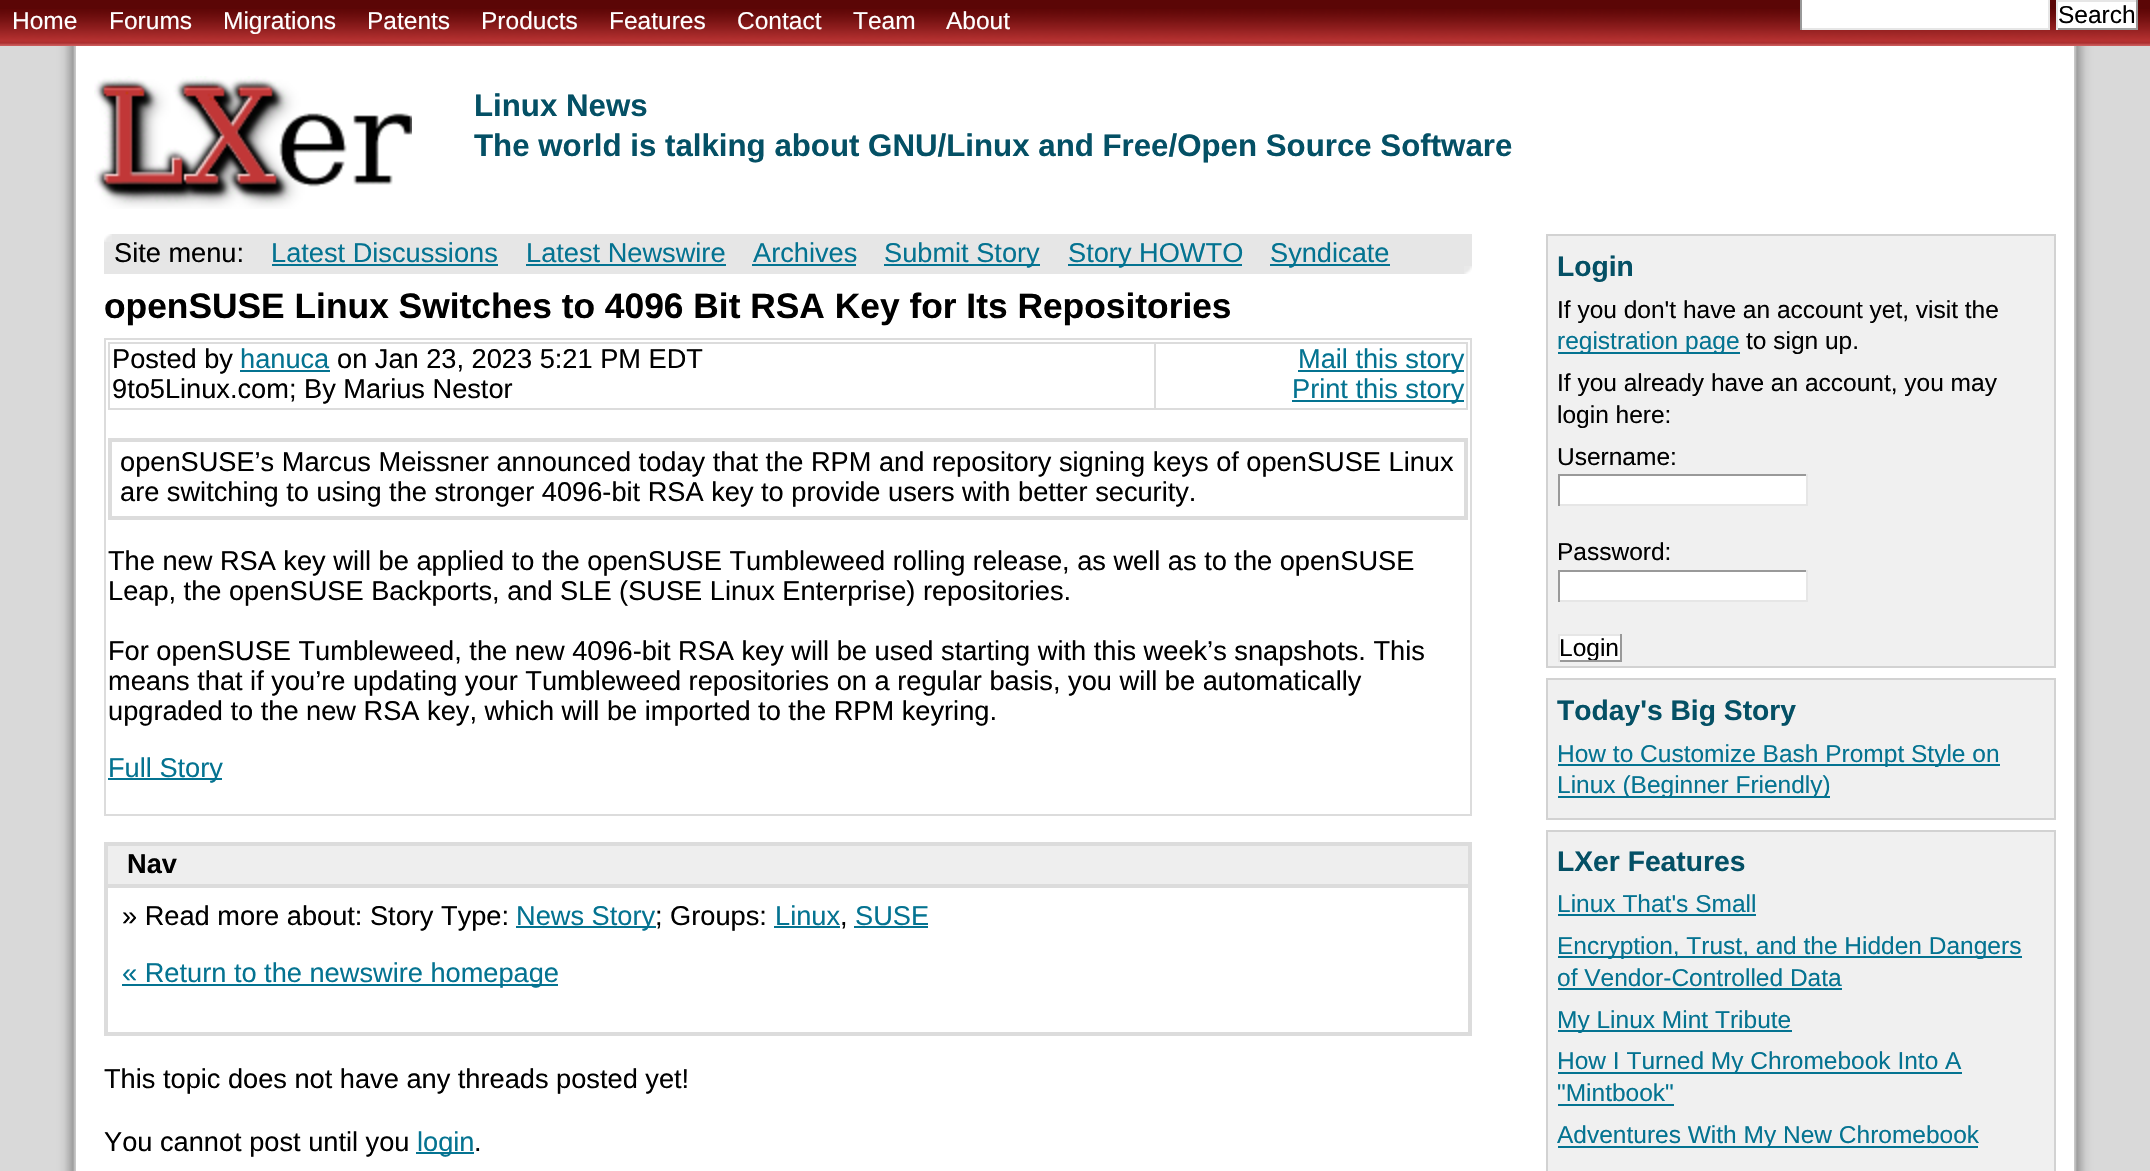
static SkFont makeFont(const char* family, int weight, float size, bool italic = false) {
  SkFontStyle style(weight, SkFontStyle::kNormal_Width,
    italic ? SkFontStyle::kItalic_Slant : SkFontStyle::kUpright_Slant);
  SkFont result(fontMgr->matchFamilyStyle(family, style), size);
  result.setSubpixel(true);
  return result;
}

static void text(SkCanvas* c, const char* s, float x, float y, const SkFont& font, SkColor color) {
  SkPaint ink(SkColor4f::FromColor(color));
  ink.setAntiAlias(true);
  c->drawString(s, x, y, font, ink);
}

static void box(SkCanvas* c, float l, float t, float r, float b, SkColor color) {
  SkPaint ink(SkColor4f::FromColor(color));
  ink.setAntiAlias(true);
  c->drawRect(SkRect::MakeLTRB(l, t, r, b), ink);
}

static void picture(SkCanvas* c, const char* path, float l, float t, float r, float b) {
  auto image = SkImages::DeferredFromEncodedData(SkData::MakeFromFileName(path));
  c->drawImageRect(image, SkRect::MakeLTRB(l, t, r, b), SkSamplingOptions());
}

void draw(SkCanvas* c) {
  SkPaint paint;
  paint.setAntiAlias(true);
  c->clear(0xffd9d9d9);
  box(c, 0, 0, 2150, 9, 0xff5b0606);
  picture(c, "img_01.png", 0, 9, 2150, 46);
  SkFont face1 = makeFont("Liberation Sans", 400, 24.5f);
  text(c, "Home", 12, 29, face1, 0xffffffff);
  text(c, "Forums", 109, 29, face1, 0xffffffff);
  text(c, "Migrations", 223, 29, face1, 0xffffffff);
  text(c, "Patents", 367, 29, face1, 0xffffffff);
  text(c, "Products", 481, 29, face1, 0xffffffff);
  text(c, "Features", 609, 29, face1, 0xffffffff);
  text(c, "Contact", 737, 29, face1, 0xffffffff);
  text(c, "Team", 853, 29, face1, 0xffffffff);
  text(c, "About", 946, 29, face1, 0xffffffff);
  box(c, 1802, 0, 2048, 28, 0xffffffff);
  box(c, 2048, 0, 2050, 30, 0xffe6e6e6);
  box(c, 1800, 28, 2050, 30, 0xffe6e6e6);
  box(c, 1800, 0, 1802, 30, 0xff999999);
  box(c, 2058, 2, 2136, 28, 0xffffffff);
  box(c, 2056, 0, 2138, 2, 0xffe6e6e6);
  box(c, 2136, 0, 2138, 30, 0xff999999);
  box(c, 2056, 28, 2138, 30, 0xff999999);
  box(c, 2056, 0, 2058, 30, 0xffe6e6e6);
  text(c, "Search", 2058, 23, face1, 0xff000000);
  box(c, 76, 46, 2074, 1171, 0xffffffff);
  picture(c, "img_02.png", 54, 46, 76, 1171);
  picture(c, "img_03.png", 94, 76, 412, 209);
  SkFont face2 = makeFont("Liberation Sans", 700, 31.25f);
  text(c, "Linux News", 474, 116, face2, 0xff045065);
  text(c, "The world is talking about GNU/Linux and Free/Open Source Software", 474, 156, face2, 0xff045065);
  picture(c, "img_04.png", 2074, 46, 2096, 1171);
  box(c, 104, 234, 1472, 274, 0xffe6e6e6);
  picture(c, "img_05.png", 104, 234, 112, 242);
  SkFont face3 = makeFont("Liberation Sans", 400, 27.2f);
  text(c, "Site menu:", 114, 262, face3, 0xff000000);
  text(c, "Latest Discussions", 271, 262, face3, 0xff047391);
  box(c, 272, 264, 498, 266, 0xff047391);
  text(c, "Latest Newswire", 526, 262, face3, 0xff047391);
  box(c, 526, 264, 726, 266, 0xff047391);
  text(c, "Archives", 753, 262, face3, 0xff047391);
  box(c, 752, 264, 856, 266, 0xff047391);
  box(c, 884, 264, 1040, 266, 0xff047391);
  text(c, "Submit Story", 884, 262, face3, 0xff047391);
  box(c, 1068, 264, 1242, 266, 0xff047391);
  text(c, "Story HOWTO", 1068, 262, face3, 0xff047391);
  box(c, 1270, 264, 1390, 266, 0xff047391);
  text(c, "Syndicate", 1270, 262, face3, 0xff047391);
  picture(c, "img_06.png", 1464, 266, 1472, 274);
  SkFont face4 = makeFont("Liberation Sans", 700, 35.35f);
  text(c, "openSUSE Linux Switches to 4096 Bit RSA Key for Its Repositories", 104, 318, face4, 0xff000000);
  box(c, 104, 338, 1472, 340, 0xffdcdcdc);
  box(c, 1470, 338, 1472, 816, 0xffdcdcdc);
  box(c, 104, 814, 1472, 816, 0xffdcdcdc);
  box(c, 104, 338, 106, 816, 0xffdcdcdc);
  box(c, 1154, 342, 1468, 344, 0xffdcdcdc);
  box(c, 1466, 342, 1468, 410, 0xffdcdcdc);
  box(c, 1154, 408, 1468, 410, 0xffdcdcdc);
  box(c, 1154, 342, 1156, 410, 0xffdcdcdc);
  box(c, 108, 342, 1156, 344, 0xffdcdcdc);
  box(c, 108, 408, 1156, 410, 0xffdcdcdc);
  box(c, 108, 342, 110, 410, 0xffdcdcdc);
  text(c, "Posted by", 112, 368, face3, 0xff000000);
  text(c, "hanuca", 240, 368, face3, 0xff047391);
  box(c, 240, 370, 330, 372, 0xff047391);
  text(c, "on Jan 23, 2023 5:21 PM EDT", 337, 368, face3, 0xff000000);
  text(c, "9to5Linux.com; By Marius Nestor", 112, 398, face3, 0xff000000);
  box(c, 1298, 370, 1464, 372, 0xff047391);
  text(c, "Mail this story", 1298, 368, face3, 0xff047391);
  box(c, 1292, 400, 1464, 402, 0xff047391);
  text(c, "Print this story", 1292, 398, face3, 0xff047391);
  box(c, 108, 438, 1468, 440, 0xffdcdcdc);
  box(c, 1466, 438, 1468, 520, 0xffdcdcdc);
  box(c, 108, 518, 1468, 520, 0xffdcdcdc);
  box(c, 108, 438, 110, 520, 0xffdcdcdc);
  box(c, 110, 440, 1466, 442, 0xffdcdcdc);
  box(c, 1464, 440, 1466, 518, 0xffdcdcdc);
  box(c, 110, 516, 1466, 518, 0xffdcdcdc);
  box(c, 110, 440, 112, 518, 0xffdcdcdc);
  text(c, "openSUSE’s Marcus Meissner announced today that the RPM and repository signing keys of openSUSE Linux", 120, 471, face3, 0xff000000);
  text(c, "are switching to using the stronger 4096-bit RSA key to provide users with better security.", 120, 501, face3, 0xff000000);
  text(c, "The new RSA key will be applied to the openSUSE Tumbleweed rolling release, as well as to the openSUSE", 108, 570, face3, 0xff000000);
  text(c, "Leap, the openSUSE Backports, and SLE (SUSE Linux Enterprise) repositories.", 108, 600, face3, 0xff000000);
  text(c, "For openSUSE Tumbleweed, the new 4096-bit RSA key will be used starting with this week’s snapshots. This", 108, 660, face3, 0xff000000);
  text(c, "means that if you’re updating your Tumbleweed repositories on a regular basis, you will be automatically", 108, 690, face3, 0xff000000);
  text(c, "upgraded to the new RSA key, which will be imported to the RPM keyring.", 108, 720, face3, 0xff000000);
  box(c, 108, 778, 222, 780, 0xff047391);
  text(c, "Full Story", 108, 777, face3, 0xff047391);
  box(c, 104, 842, 1472, 844, 0xffdcdcdc);
  box(c, 1470, 842, 1472, 1036, 0xffdcdcdc);
  box(c, 104, 1034, 1472, 1036, 0xffdcdcdc);
  box(c, 104, 842, 106, 1036, 0xffdcdcdc);
  box(c, 108, 846, 1468, 884, 0xffeeeeee);
  box(c, 106, 844, 1470, 846, 0xffdcdcdc);
  box(c, 1468, 844, 1470, 886, 0xffdcdcdc);
  box(c, 106, 884, 1470, 888, 0xffdcdcdc);
  box(c, 106, 844, 108, 886, 0xffdcdcdc);
  SkFont face5 = makeFont("Liberation Sans", 700, 27.2f);
  text(c, "Nav", 127, 873, face5, 0xff000000);
  box(c, 1468, 886, 1470, 1034, 0xffdcdcdc);
  box(c, 106, 1032, 1470, 1034, 0xffdcdcdc);
  box(c, 106, 886, 108, 1034, 0xffdcdcdc);
  text(c, "» Read more about: Story Type:", 122, 925, face3, 0xff000000);
  box(c, 516, 926, 656, 928, 0xff047391);
  text(c, "News Story", 516, 925, face3, 0xff047391);
  text(c, "; Groups:", 655, 925, face3, 0xff000000);
  text(c, "Linux", 775, 925, face3, 0xff047391);
  box(c, 774, 926, 840, 928, 0xff047391);
  text(c, ",", 840, 925, face3, 0xff000000);
  text(c, "SUSE", 855, 925, face3, 0xff047391);
  box(c, 854, 926, 928, 928, 0xff047391);
  box(c, 122, 984, 558, 986, 0xff047391);
  text(c, "« Return to the newswire homepage", 122, 982, face3, 0xff047391);
  text(c, "This topic does not have any threads posted yet!", 104, 1088, face3, 0xff000000);
  text(c, "You cannot post until you", 104, 1151, face3, 0xff000000);
  box(c, 416, 1152, 474, 1154, 0xff047391);
  text(c, "login", 417, 1151, face3, 0xff047391);
  text(c, ".", 474, 1151, face3, 0xff000000);
  paint.setColor(0xfff0f0f0);
  c->drawRect(SkRect::MakeLTRB(1547, 235, 2055, 667), paint);
  paint.setStyle(SkPaint::kStroke_Style);
  paint.setStrokeWidth(2);
  paint.setColor(0xffd2d2d2);
  c->drawRect(SkRect::MakeLTRB(1547, 235, 2055, 667), paint);
  SkFont face6 = makeFont("Liberation Sans", 700, 28.25f);
  text(c, "Login", 1557, 276, face6, 0xff045065);
  text(c, "If you don't have an account yet, visit the", 1557, 318, face1, 0xff000000);
  box(c, 1558, 352, 1740, 354, 0xff047391);
  text(c, "registration page", 1557, 349, face1, 0xff047391);
  text(c, "to sign up.", 1746, 349, face1, 0xff000000);
  text(c, "If you already have an account, you may", 1557, 391, face1, 0xff000000);
  text(c, "login here:", 1557, 423, face1, 0xff000000);
  text(c, "Username:", 1557, 465, face1, 0xff000000);
  box(c, 1560, 476, 1806, 504, 0xffffffff);
  box(c, 1558, 474, 1808, 476, 0xff999999);
  box(c, 1806, 474, 1808, 506, 0xffe6e6e6);
  box(c, 1558, 504, 1808, 506, 0xffe6e6e6);
  box(c, 1558, 474, 1560, 506, 0xff999999);
  text(c, "Password:", 1557, 560, face1, 0xff000000);
  box(c, 1560, 572, 1806, 600, 0xffffffff);
  box(c, 1558, 570, 1808, 572, 0xff999999);
  box(c, 1806, 570, 1808, 602, 0xffe6e6e6);
  box(c, 1558, 600, 1808, 602, 0xffe6e6e6);
  box(c, 1558, 570, 1560, 602, 0xff999999);
  box(c, 1560, 636, 1620, 660, 0xffffffff);
  box(c, 1558, 634, 1622, 636, 0xffe6e6e6);
  box(c, 1620, 634, 1622, 662, 0xff999999);
  box(c, 1558, 660, 1622, 662, 0xff999999);
  box(c, 1558, 634, 1560, 662, 0xffe6e6e6);
  c->save();
  c->clipRect(SkRect::MakeLTRB(1560, 636, 1620, 660));
  text(c, "Login", 1559, 656, face1, 0xff000000);
  c->restore();
  paint.setStyle(SkPaint::kFill_Style);
  paint.setColor(0xfff0f0f0);
  c->drawRect(SkRect::MakeLTRB(1547, 679, 2055, 819), paint);
  paint.setStyle(SkPaint::kStroke_Style);
  paint.setColor(0xffd2d2d2);
  c->drawRect(SkRect::MakeLTRB(1547, 679, 2055, 819), paint);
  text(c, "Today's Big Story", 1557, 720, face6, 0xff045065);
  box(c, 1558, 764, 2000, 766, 0xff047391);
  text(c, "How to Customize Bash Prompt Style on", 1557, 762, face1, 0xff047391);
  box(c, 1558, 796, 1830, 798, 0xff047391);
  text(c, "Linux (Beginner Friendly)", 1557, 793, face1, 0xff047391);
  paint.setStyle(SkPaint::kFill_Style);
  paint.setColor(0xfff0f0f0);
  c->drawRect(SkRect::MakeLTRB(1547, 831, 2055, 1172), paint);
  paint.setStyle(SkPaint::kStroke_Style);
  paint.setColor(0xffd2d2d2);
  c->drawRect(SkRect::MakeLTRB(1547, 831, 2055, 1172), paint);
  text(c, "LXer Features", 1557, 871, face6, 0xff045065);
  text(c, "Linux That's Small", 1557, 912, face1, 0xff047391);
  box(c, 1558, 914, 1756, 916, 0xff047391);
  box(c, 1558, 956, 2022, 958, 0xff047391);
  text(c, "Encryption, Trust, and the Hidden Dangers", 1557, 954, face1, 0xff047391);
  text(c, "of Vendor-Controlled Data", 1557, 986, face1, 0xff047391);
  box(c, 1558, 988, 1842, 990, 0xff047391);
  box(c, 1558, 1030, 1792, 1032, 0xff047391);
  text(c, "My Linux Mint Tribute", 1557, 1028, face1, 0xff047391);
  box(c, 1558, 1072, 1962, 1074, 0xff047391);
  text(c, "How I Turned My Chromebook Into A", 1557, 1069, face1, 0xff047391);
  text(c, "\"Mintbook\"", 1557, 1101, face1, 0xff047391);
  box(c, 1558, 1104, 1674, 1106, 0xff047391);
  box(c, 1558, 1146, 1978, 1148, 0xff047391);
  text(c, "Adventures With My New Chromebook", 1557, 1143, face1, 0xff047391);
}
